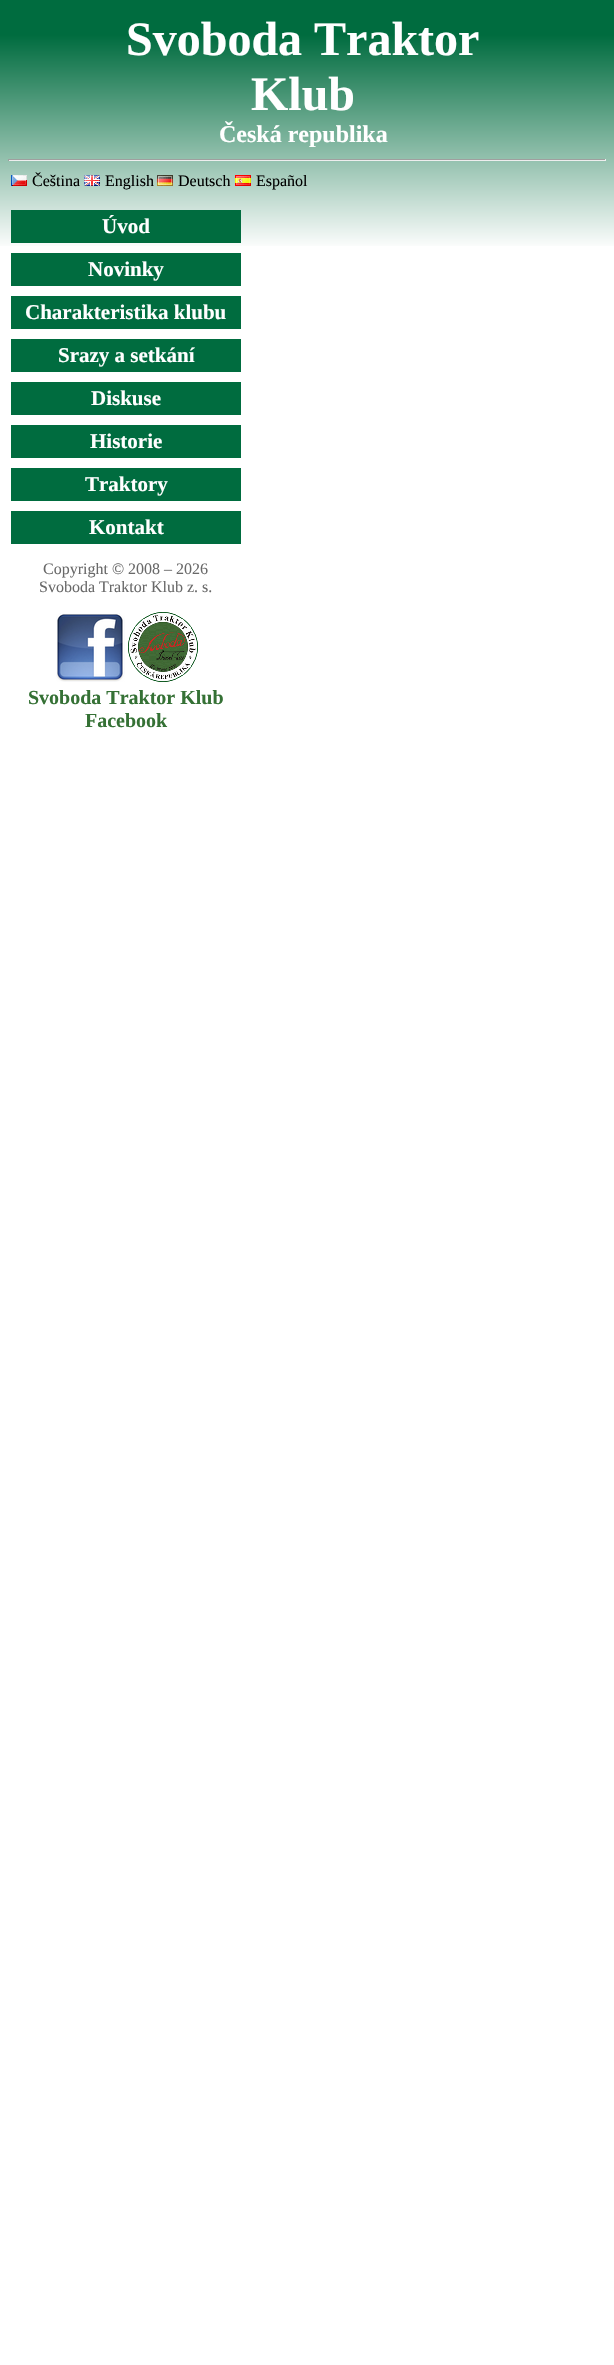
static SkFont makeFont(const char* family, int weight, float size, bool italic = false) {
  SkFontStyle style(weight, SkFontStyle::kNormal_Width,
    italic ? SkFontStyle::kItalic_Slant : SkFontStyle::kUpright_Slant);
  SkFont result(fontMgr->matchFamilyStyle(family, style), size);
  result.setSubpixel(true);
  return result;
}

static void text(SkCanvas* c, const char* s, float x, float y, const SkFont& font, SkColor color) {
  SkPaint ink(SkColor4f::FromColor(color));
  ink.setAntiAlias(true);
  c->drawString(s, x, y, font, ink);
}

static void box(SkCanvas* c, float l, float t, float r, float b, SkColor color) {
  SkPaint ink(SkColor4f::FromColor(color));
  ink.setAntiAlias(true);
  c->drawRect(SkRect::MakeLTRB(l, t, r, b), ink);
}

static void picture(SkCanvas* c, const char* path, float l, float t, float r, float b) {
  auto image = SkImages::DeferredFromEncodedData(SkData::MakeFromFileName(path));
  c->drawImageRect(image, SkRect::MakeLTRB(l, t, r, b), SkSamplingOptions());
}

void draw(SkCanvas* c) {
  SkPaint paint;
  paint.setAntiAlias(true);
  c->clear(0xffffffff);
  picture(c, "img_01.png", 0, 0, 614, 246);
  SkFont face1 = makeFont("Liberation Serif", 700, 48);
  text(c, "Svoboda Traktor", 126, 55, face1, 0xffffffff);
  text(c, "Klub", 251, 110, face1, 0xffffffff);
  SkFont face2 = makeFont("Liberation Serif", 700, 24);
  text(c, "Česká republika", 219, 142, face2, 0xffffffff);
  box(c, 8, 159, 606, 160, 0xff9f9f9f);
  box(c, 605, 159, 606, 161, 0xffeeeeee);
  box(c, 8, 160, 606, 161, 0xffeeeeee);
  box(c, 8, 159, 9, 161, 0xff9f9f9f);
  picture(c, "img_02.png", 11, 175, 27, 186);
  SkFont face3 = makeFont("Liberation Serif", 400, 16);
  text(c, "Čeština", 32, 186, face3, 0xff000000);
  picture(c, "img_03.png", 84, 175, 100, 186);
  text(c, "English", 105, 186, face3, 0xff000000);
  picture(c, "img_04.png", 157, 175, 173, 186);
  text(c, "Deutsch", 178, 186, face3, 0xff000000);
  picture(c, "img_05.png", 235, 175, 251, 186);
  text(c, "Español", 256, 186, face3, 0xff000000);
  box(c, 11, 210, 241, 243, 0xff006c3f);
  SkFont face4 = makeFont("Liberation Serif", 700, 21);
  text(c, "Úvod", 102, 233, face4, 0xffffffff);
  box(c, 11, 253, 241, 286, 0xff006c3f);
  text(c, "Novinky", 88, 276, face4, 0xffffffff);
  box(c, 11, 296, 241, 329, 0xff006c3f);
  text(c, "Charakteristika klubu", 25, 319, face4, 0xffffffff);
  box(c, 11, 339, 241, 372, 0xff006c3f);
  text(c, "Srazy a setkání", 58, 362, face4, 0xffffffff);
  box(c, 11, 382, 241, 415, 0xff006c3f);
  text(c, "Diskuse", 91, 405, face4, 0xffffffff);
  box(c, 11, 425, 241, 458, 0xff006c3f);
  text(c, "Historie", 90, 448, face4, 0xffffffff);
  box(c, 11, 468, 241, 501, 0xff006c3f);
  text(c, "Traktory", 85, 491, face4, 0xffffffff);
  box(c, 11, 511, 241, 544, 0xff006c3f);
  text(c, "Kontakt", 89, 534, face4, 0xffffffff);
  text(c, "Copyright © 2008 – 2026", 43, 574, face3, 0xff696969);
  text(c, "Svoboda Traktor Klub z. s.", 39, 592, face3, 0xff696969);
  picture(c, "img_06.png", 56, 612, 198, 682);
  SkFont face5 = makeFont("Liberation Serif", 700, 20);
  text(c, "Svoboda Traktor Klub", 28, 704, face5, 0xff357135);
  text(c, "Facebook", 85, 727, face5, 0xff357135);
}
